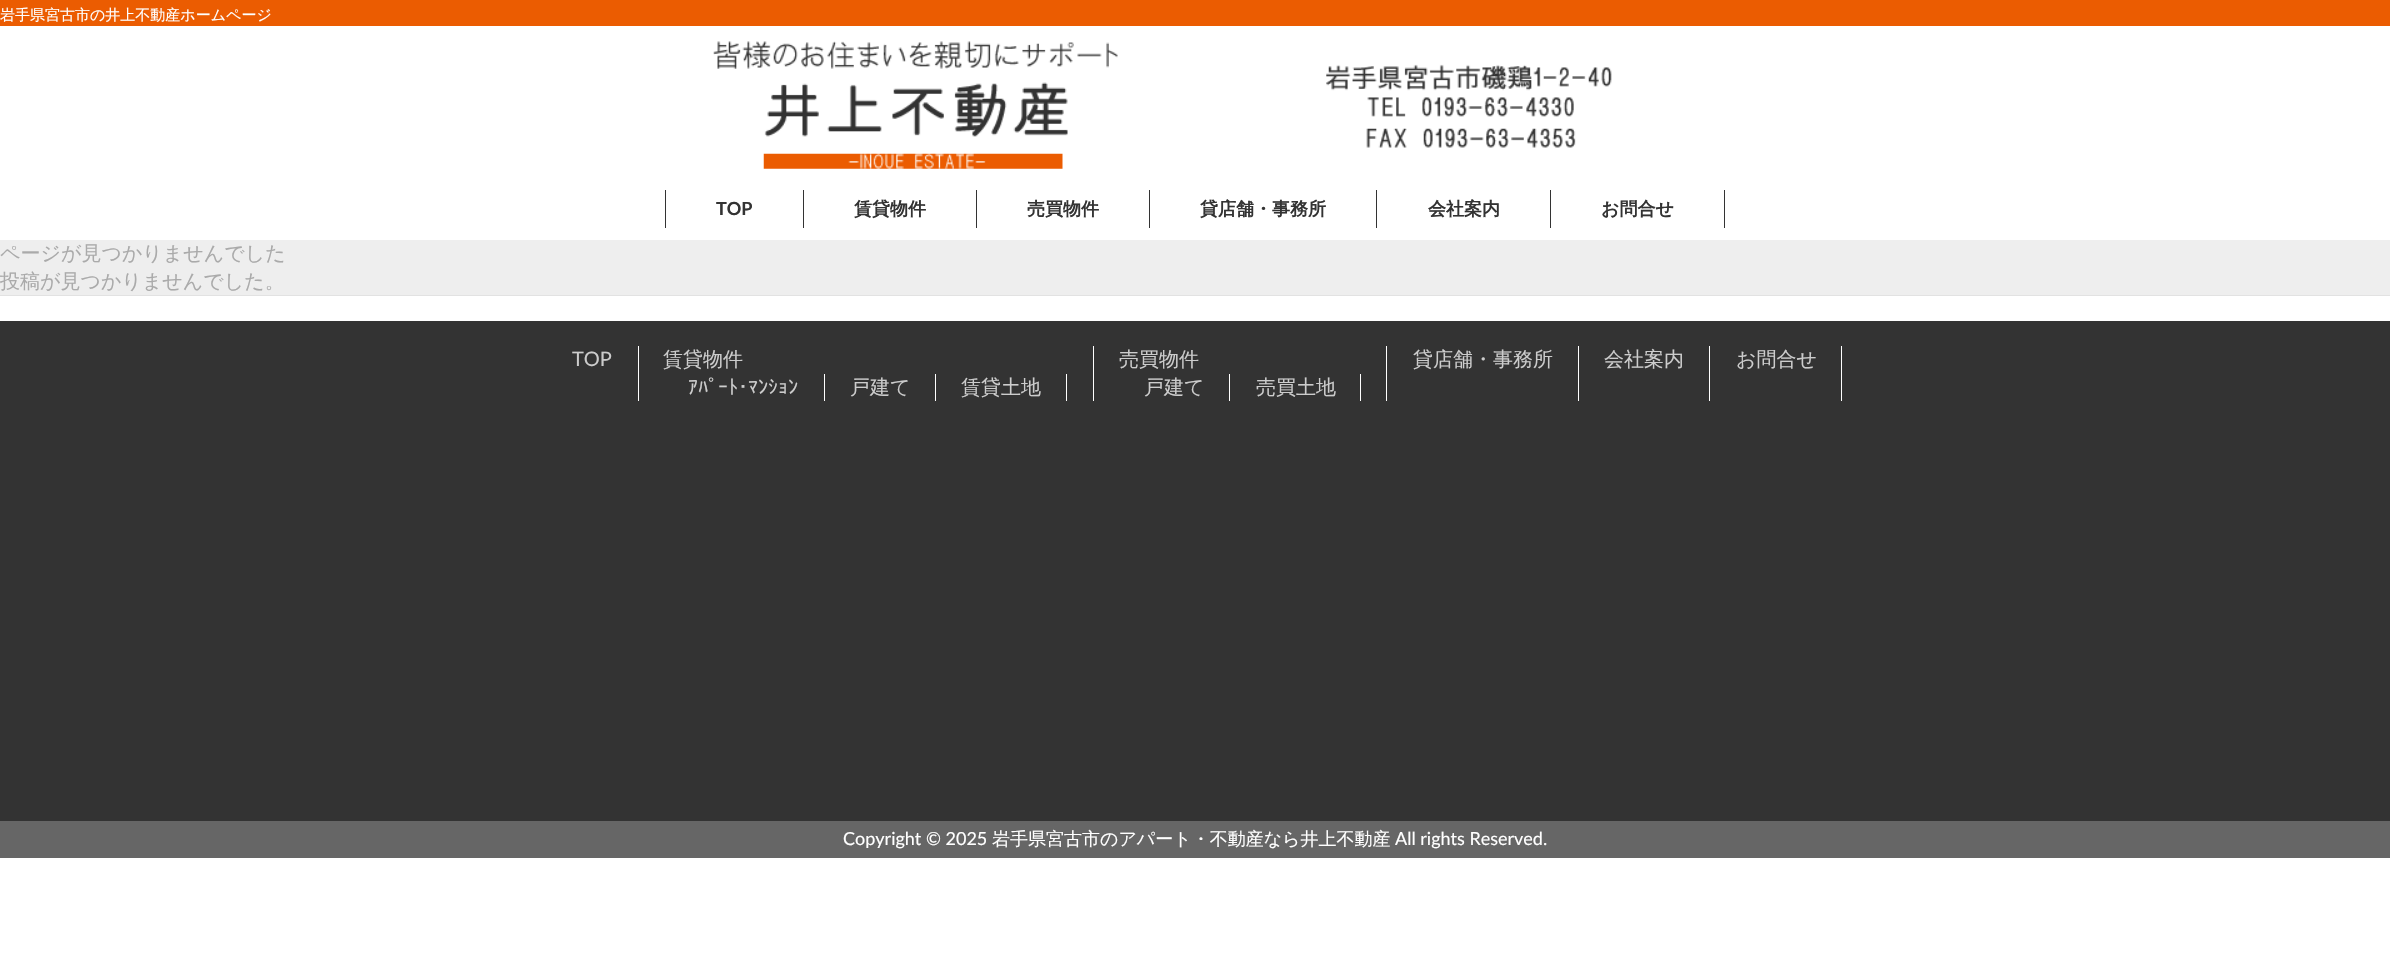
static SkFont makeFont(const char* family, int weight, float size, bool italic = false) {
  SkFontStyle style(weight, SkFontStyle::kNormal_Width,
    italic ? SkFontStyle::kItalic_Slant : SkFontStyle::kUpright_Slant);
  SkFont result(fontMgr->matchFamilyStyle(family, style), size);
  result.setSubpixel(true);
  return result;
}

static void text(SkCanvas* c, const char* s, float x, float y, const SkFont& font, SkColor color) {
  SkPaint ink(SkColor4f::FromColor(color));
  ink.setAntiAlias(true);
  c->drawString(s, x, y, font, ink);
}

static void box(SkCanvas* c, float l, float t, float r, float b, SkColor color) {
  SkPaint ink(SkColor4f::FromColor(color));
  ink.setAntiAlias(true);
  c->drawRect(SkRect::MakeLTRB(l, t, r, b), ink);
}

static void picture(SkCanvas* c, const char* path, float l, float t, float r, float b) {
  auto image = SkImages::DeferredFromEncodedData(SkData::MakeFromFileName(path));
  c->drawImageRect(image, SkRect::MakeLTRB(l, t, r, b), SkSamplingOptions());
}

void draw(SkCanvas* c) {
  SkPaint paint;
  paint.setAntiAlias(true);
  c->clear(0xffffffff);
  box(c, 0, 0, 2390, 26, 0xffeb5c01);
  SkFont face1 = makeFont("WenQuanYi Zen Hei", 500, 15);
  text(c, "岩手県宮古市の井上不動産ホームページ", 0, 20, face1, 0xffffffff);
  picture(c, "img_01.png", 713, 41, 1612, 169);
  box(c, 803, 190, 804, 228, 0xff333333);
  box(c, 665, 190, 666, 228, 0xff333333);
  SkFont face2 = makeFont("Lato", 700, 18);
  text(c, "TOP", 716, 215, face2, 0xff333333);
  box(c, 976, 190, 977, 228, 0xff333333);
  SkFont face3 = makeFont("WenQuanYi Zen Hei", 700, 18);
  text(c, "賃貸物件", 854, 215, face3, 0xff333333);
  box(c, 1149, 190, 1150, 228, 0xff333333);
  text(c, "売買物件", 1027, 215, face3, 0xff333333);
  box(c, 1376, 190, 1377, 228, 0xff333333);
  text(c, "貸店舗・事務所", 1200, 215, face3, 0xff333333);
  box(c, 1550, 190, 1551, 228, 0xff333333);
  text(c, "会社案内", 1428, 215, face3, 0xff333333);
  box(c, 1724, 190, 1725, 228, 0xff333333);
  text(c, "お問合せ", 1601, 215, face3, 0xff333333);
  box(c, 0, 240, 2390, 295, 0xffeeeeee);
  SkFont face4 = makeFont("WenQuanYi Zen Hei", 500, 20);
  text(c, "ページが見つかりませんでした", 0, 260, face4, 0xffaaaaaa);
  text(c, "投稿が見つかりませんでした。", 0, 288, face4, 0xffaaaaaa);
  box(c, 0, 295, 2390, 296, 0xffe2e2e2);
  box(c, 0, 321, 2390, 821, 0xff333333);
  box(c, 638, 346, 639, 401, 0xffffffff);
  SkFont face5 = makeFont("Lato", 400, 20);
  text(c, "TOP", 572, 366, face5, 0xffcccccc);
  box(c, 1093, 346, 1094, 401, 0xffffffff);
  text(c, "賃貸物件", 663, 366, face4, 0xffcccccc);
  box(c, 824, 374, 825, 401, 0xffffffff);
  SkFont face6 = makeFont("IPAPGothic", 400, 20);
  text(c, "ｱﾊﾟｰﾄ・ﾏﾝｼｮﾝ", 688, 394, face6, 0xffcccccc);
  box(c, 935, 374, 936, 401, 0xffffffff);
  text(c, "戸建て", 850, 394, face4, 0xffcccccc);
  box(c, 1066, 374, 1067, 401, 0xffffffff);
  text(c, "賃貸土地", 961, 394, face4, 0xffcccccc);
  box(c, 1386, 346, 1387, 401, 0xffffffff);
  text(c, "売買物件", 1119, 366, face4, 0xffcccccc);
  box(c, 1229, 374, 1230, 401, 0xffffffff);
  text(c, "戸建て", 1144, 394, face4, 0xffcccccc);
  box(c, 1360, 374, 1361, 401, 0xffffffff);
  text(c, "売買土地", 1256, 394, face4, 0xffcccccc);
  box(c, 1578, 346, 1579, 401, 0xffffffff);
  text(c, "貸店舗・事務所", 1413, 366, face4, 0xffcccccc);
  box(c, 1709, 346, 1710, 401, 0xffffffff);
  text(c, "会社案内", 1604, 366, face4, 0xffcccccc);
  box(c, 1841, 346, 1842, 401, 0xffffffff);
  text(c, "お問合せ", 1736, 366, face4, 0xffcccccc);
  box(c, 0, 821, 2390, 858, 0xff666666);
  SkFont face7 = makeFont("Lato", 400, 18);
  text(c, "Copyright © 2025", 843, 845, face7, 0xffffffff);
  SkFont face8 = makeFont("WenQuanYi Zen Hei", 500, 18);
  text(c, "岩手県宮古市のアパート・不動産なら井上不動産", 992, 845, face8, 0xffffffff);
  text(c, "All rights Reserved.", 1395, 845, face7, 0xffffffff);
}
